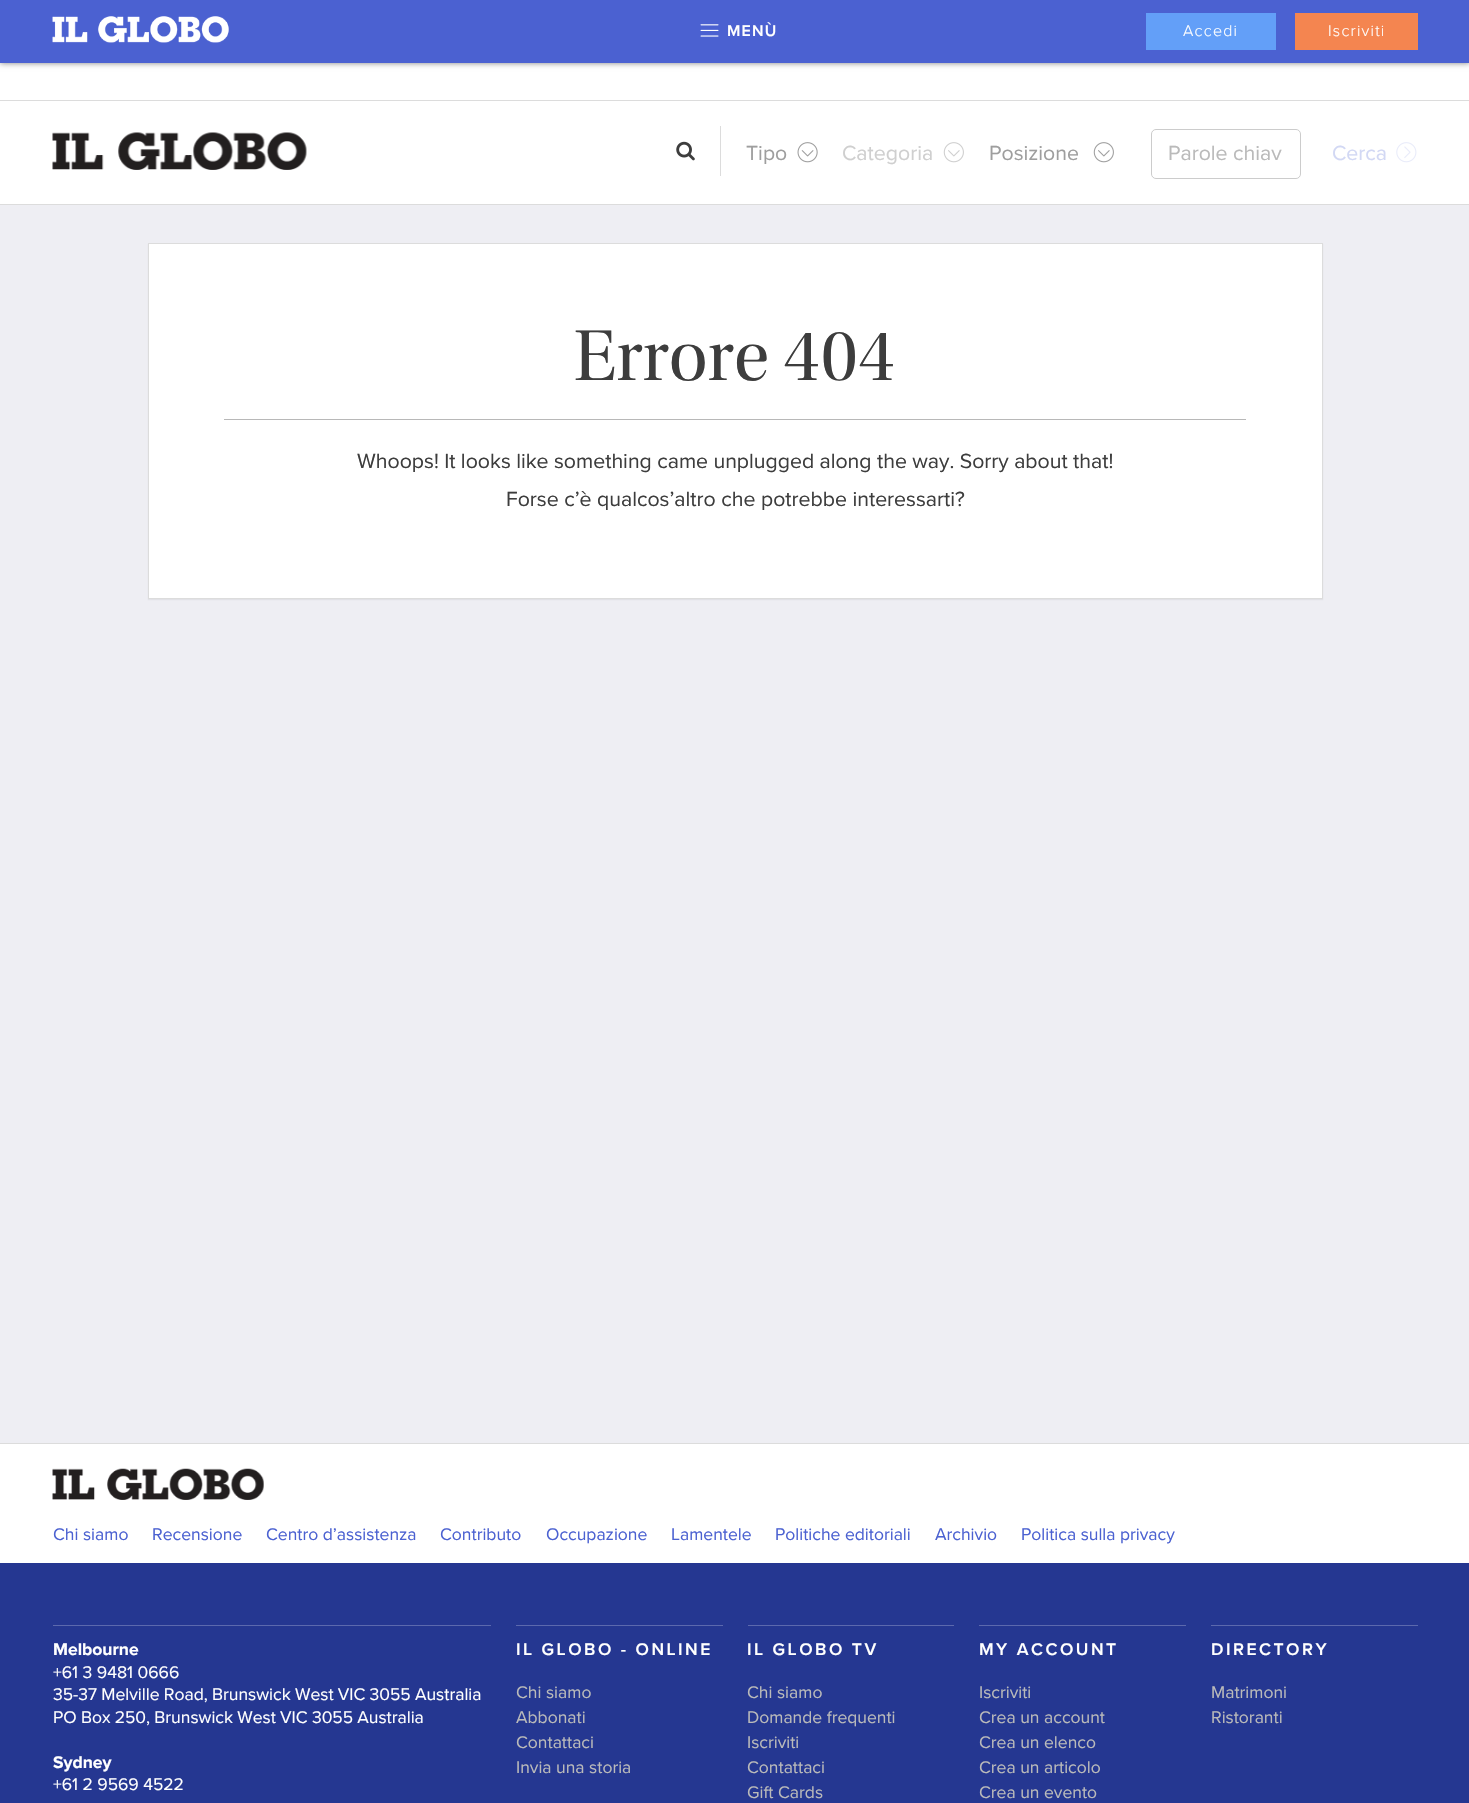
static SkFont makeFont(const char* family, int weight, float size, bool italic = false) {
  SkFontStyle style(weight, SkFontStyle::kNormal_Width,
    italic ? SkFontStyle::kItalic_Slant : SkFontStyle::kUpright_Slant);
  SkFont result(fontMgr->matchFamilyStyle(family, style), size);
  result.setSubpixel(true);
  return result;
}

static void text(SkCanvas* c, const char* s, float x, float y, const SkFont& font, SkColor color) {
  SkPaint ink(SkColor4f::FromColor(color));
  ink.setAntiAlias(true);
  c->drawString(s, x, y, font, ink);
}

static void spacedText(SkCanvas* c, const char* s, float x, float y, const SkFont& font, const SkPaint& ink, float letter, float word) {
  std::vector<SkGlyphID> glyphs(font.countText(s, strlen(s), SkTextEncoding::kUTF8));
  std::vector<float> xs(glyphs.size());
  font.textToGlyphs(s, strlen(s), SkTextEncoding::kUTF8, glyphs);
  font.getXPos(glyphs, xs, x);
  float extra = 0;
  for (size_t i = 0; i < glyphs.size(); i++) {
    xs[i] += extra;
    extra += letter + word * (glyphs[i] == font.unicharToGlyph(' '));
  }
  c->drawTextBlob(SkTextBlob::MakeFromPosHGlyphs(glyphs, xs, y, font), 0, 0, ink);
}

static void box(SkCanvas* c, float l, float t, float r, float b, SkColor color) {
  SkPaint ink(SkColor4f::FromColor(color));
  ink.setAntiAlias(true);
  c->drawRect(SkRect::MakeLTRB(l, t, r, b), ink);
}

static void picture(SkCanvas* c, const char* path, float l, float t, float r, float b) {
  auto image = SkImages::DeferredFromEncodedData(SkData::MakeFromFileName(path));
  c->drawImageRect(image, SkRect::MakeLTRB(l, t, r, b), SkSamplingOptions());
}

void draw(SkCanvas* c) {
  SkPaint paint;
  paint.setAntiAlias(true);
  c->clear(0xffeeeef3);
  box(c, 0, 63, 1469, 204, 0xffffffff);
  box(c, 0, 204, 1469, 205, 0xffdcdcdc);
  paint.setColor(0x80000000);
  paint.setMaskFilter(SkMaskFilter::MakeBlur(kNormal_SkBlurStyle, 3));
  c->drawRect(SkRect::MakeLTRB(0, 0, 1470, 63), paint);
  paint.setMaskFilter(nullptr);
  box(c, 0, 0, 1469, 63, 0xff4b61d1);
  picture(c, "img_01.png", 52, 16, 229, 43);
  picture(c, "img_02.png", 700, 24, 719, 37);
  SkFont face1 = makeFont("Proxima Nova", 600, 16);
  paint.setColor(0xffffffff);
  spacedText(c, "MENÙ", 727, 36, face1, paint, 1.25f, 0);
  box(c, 1146, 13, 1276, 50, 0xff639ff8);
  SkFont face2 = makeFont("Proxima Nova", 300, 16);
  spacedText(c, "Accedi", 1183, 36, face2, paint, 1.25f, 0);
  box(c, 1295, 13, 1418, 50, 0xfff48550);
  spacedText(c, "Iscriviti", 1328, 36, face2, paint, 1.25f, 0);
  box(c, 0, 100, 1469, 101, 0xffdcdcdc);
  picture(c, "img_03.png", 52, 132, 307, 170);
  box(c, 720, 126, 721, 176, 0xffdcdcdc);
  picture(c, "img_04.png", 676, 141, 695, 161);
  SkFont face3 = makeFont("Proxima Nova", 400, 21.25f);
  text(c, "Tipo", 746, 160, face3, 0xff9e9e9e);
  picture(c, "img_05.png", 797, 142, 818, 163);
  text(c, "Categoria", 842, 160, face3, 0xffcfcfcf);
  picture(c, "img_06.png", 943, 142, 964, 163);
  text(c, "Posizione", 989, 160, face3, 0xff9e9e9e);
  picture(c, "img_07.png", 1093, 142, 1114, 163);
  paint.setStyle(SkPaint::kStroke_Style);
  paint.setStrokeWidth(1);
  paint.setColor(0xffcccccc);
  c->drawRoundRect(SkRect::MakeLTRB(1151.5f, 129.5f, 1300.5f, 178.5f), 4.5f, 4.5f, paint);
  text(c, "Parole chiav", 1168, 160, face3, 0xffbababa);
  text(c, "Cerca", 1332, 160, face3, 0xffd2d8f4);
  picture(c, "img_08.png", 1396, 142, 1417, 163);
  paint.setStyle(SkPaint::kFill_Style);
  paint.setColor(0x0d000000);
  paint.setMaskFilter(SkMaskFilter::MakeBlur(kNormal_SkBlurStyle, 0.5f));
  c->drawRect(SkRect::MakeLTRB(148, 244, 1323, 600), paint);
  paint.setMaskFilter(nullptr);
  paint.setColor(0xffffffff);
  c->drawRect(SkRect::MakeLTRB(148.5f, 243.5f, 1322.5f, 598.5f), paint);
  paint.setStyle(SkPaint::kStroke_Style);
  paint.setColor(0xffdcdcdc);
  c->drawRect(SkRect::MakeLTRB(148.5f, 243.5f, 1322.5f, 598.5f), paint);
  box(c, 224, 419, 1246, 420, 0xffb8b8b8);
  SkFont face4 = makeFont("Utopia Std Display", 400, 75);
  text(c, "Errore 404", 574, 380, face4, 0xff3d3d3d);
  paint.setStyle(SkPaint::kFill_Style);
  paint.setColor(0xff3d3d3d);
  spacedText(c, "Whoops! It looks like something came unplugged along the way. Sorry about that!", 357, 468, face3, paint, 0, -0.1f);
  text(c, "Forse c’è qualcos’altro che potrebbe interessarti?", 506, 506, face3, 0xff3d3d3d);
  box(c, 0, 1444, 1469, 1563, 0xffffffff);
  box(c, 0, 1443, 1469, 1444, 0xffdcdcdc);
  picture(c, "img_09.png", 52, 1468, 264, 1500);
  SkFont face5 = makeFont("Proxima Nova", 400, 17.5f);
  text(c, "Chi siamo", 53, 1540, face5, 0xff4b61d1);
  text(c, "Recensione", 152, 1540, face5, 0xff4b61d1);
  text(c, "Centro d’assistenza", 266, 1540, face5, 0xff4b61d1);
  text(c, "Contributo", 440, 1540, face5, 0xff4b61d1);
  text(c, "Occupazione", 546, 1540, face5, 0xff4b61d1);
  text(c, "Lamentele", 671, 1540, face5, 0xff4b61d1);
  text(c, "Politiche editoriali", 775, 1540, face5, 0xff4b61d1);
  text(c, "Archivio", 935, 1540, face5, 0xff4b61d1);
  text(c, "Politica sulla privacy", 1021, 1540, face5, 0xff4b61d1);
  box(c, 0, 1563, 1469, 1803, 0xff253791);
  box(c, 53, 1625, 491, 1626, 0xff5c69ad);
  SkFont face6 = makeFont("Proxima Nova", 700, 17.5f);
  text(c, "Melbourne", 53, 1655, face6, 0xffffffff);
  text(c, "+61 3 9481 0666", 53, 1678, face5, 0xffffffff);
  paint.setColor(0xffffffff);
  spacedText(c, "35-37 Melville Road, Brunswick West VIC 3055 Australia", 53, 1700, face5, paint, 0, -0.25f);
  spacedText(c, "PO Box 250, Brunswick West VIC 3055 Australia", 53, 1723, face5, paint, 0, -0.25f);
  text(c, "Sydney", 53, 1768, face6, 0xffffffff);
  text(c, "+61 2 9569 4522", 53, 1790, face5, 0xffffffff);
  box(c, 516, 1625, 723, 1626, 0xff5c69ad);
  SkFont face7 = makeFont("Proxima Nova", 600, 17.5f);
  spacedText(c, "IL GLOBO - ONLINE", 516, 1655, face7, paint, 2.5f, 0);
  text(c, "Chi siamo", 516, 1698, face5, 0xffbababa);
  text(c, "Abbonati", 516, 1723, face5, 0xffbababa);
  text(c, "Contattaci", 516, 1748, face5, 0xffbababa);
  text(c, "Invia una storia", 516, 1773, face5, 0xffbababa);
  box(c, 748, 1625, 954, 1626, 0xff5c69ad);
  spacedText(c, "IL GLOBO TV", 747, 1655, face7, paint, 2.5f, 0);
  text(c, "Chi siamo", 747, 1698, face5, 0xffbababa);
  text(c, "Domande frequenti", 747, 1723, face5, 0xffbababa);
  text(c, "Iscriviti", 747, 1748, face5, 0xffbababa);
  text(c, "Contattaci", 747, 1773, face5, 0xffbababa);
  text(c, "Gift Cards", 747, 1798, face5, 0xffbababa);
  box(c, 979, 1625, 1186, 1626, 0xff5c69ad);
  spacedText(c, "MY ACCOUNT", 979, 1655, face7, paint, 2.5f, 0);
  text(c, "Iscriviti", 979, 1698, face5, 0xffbababa);
  text(c, "Crea un account", 979, 1723, face5, 0xffbababa);
  text(c, "Crea un elenco", 979, 1748, face5, 0xffbababa);
  text(c, "Crea un articolo", 979, 1773, face5, 0xffbababa);
  text(c, "Crea un evento", 979, 1798, face5, 0xffbababa);
  box(c, 1211, 1625, 1418, 1626, 0xff5c69ad);
  spacedText(c, "DIRECTORY", 1211, 1655, face7, paint, 2.5f, 0);
  text(c, "Matrimoni", 1211, 1698, face5, 0xffbababa);
  text(c, "Ristoranti", 1211, 1723, face5, 0xffbababa);
}
